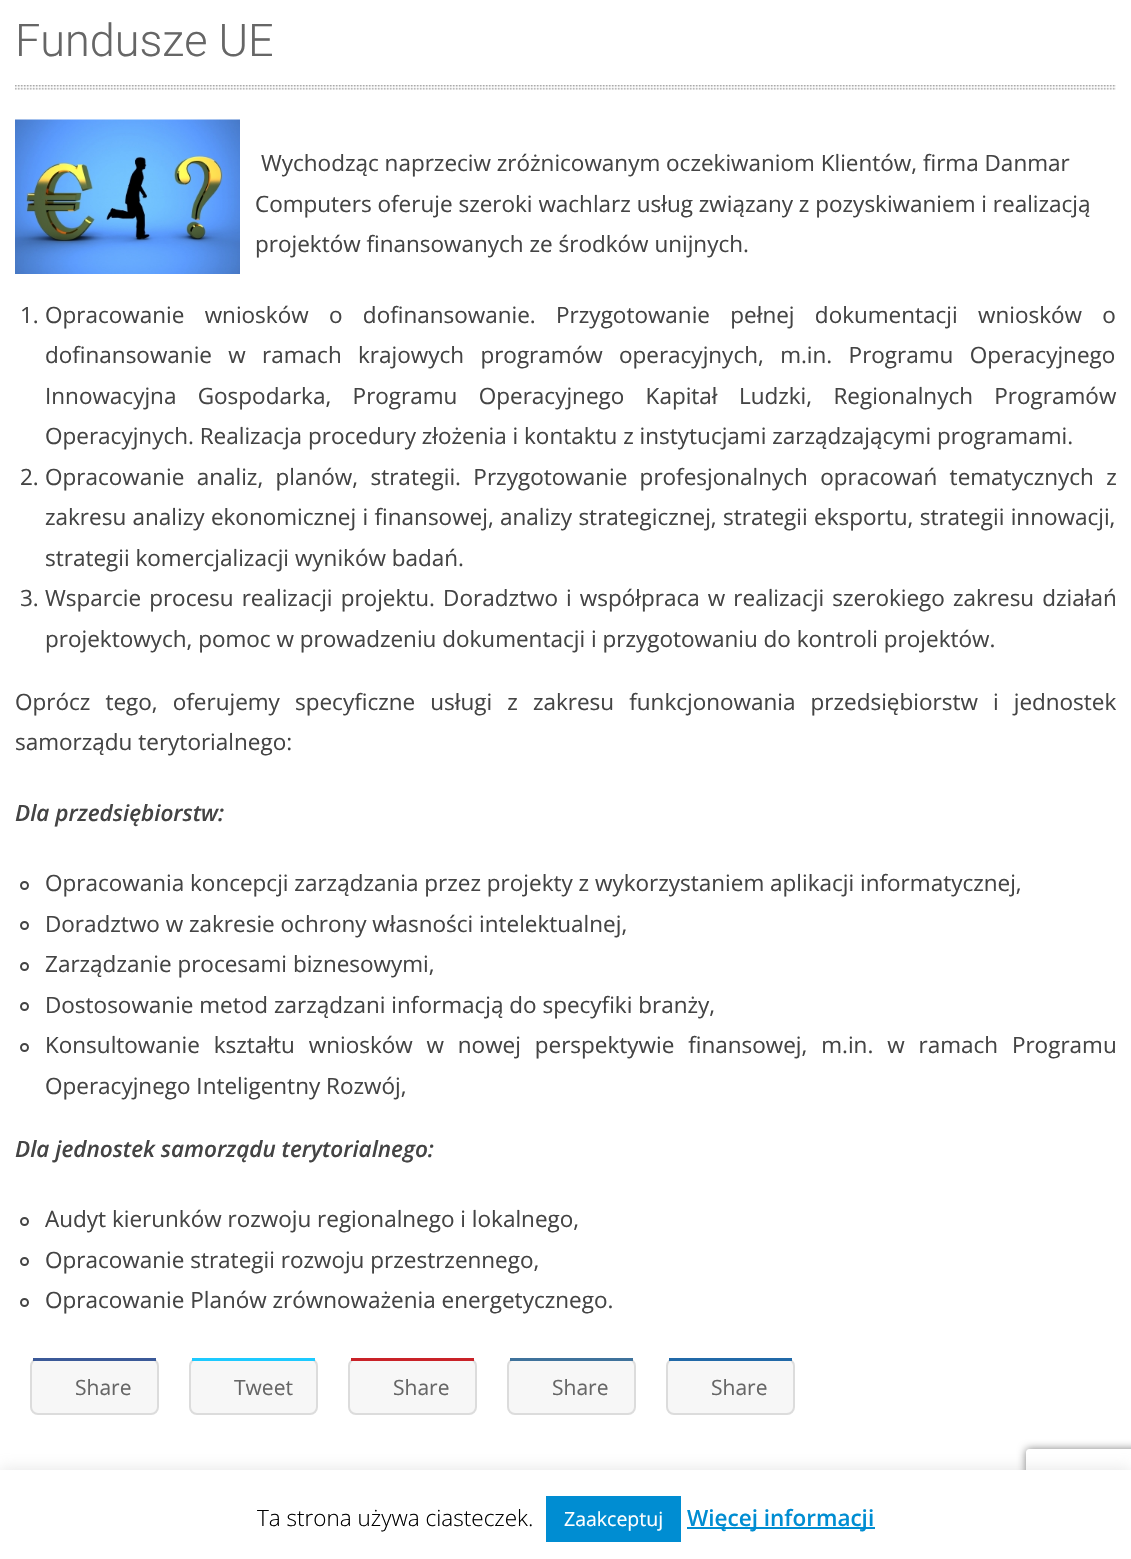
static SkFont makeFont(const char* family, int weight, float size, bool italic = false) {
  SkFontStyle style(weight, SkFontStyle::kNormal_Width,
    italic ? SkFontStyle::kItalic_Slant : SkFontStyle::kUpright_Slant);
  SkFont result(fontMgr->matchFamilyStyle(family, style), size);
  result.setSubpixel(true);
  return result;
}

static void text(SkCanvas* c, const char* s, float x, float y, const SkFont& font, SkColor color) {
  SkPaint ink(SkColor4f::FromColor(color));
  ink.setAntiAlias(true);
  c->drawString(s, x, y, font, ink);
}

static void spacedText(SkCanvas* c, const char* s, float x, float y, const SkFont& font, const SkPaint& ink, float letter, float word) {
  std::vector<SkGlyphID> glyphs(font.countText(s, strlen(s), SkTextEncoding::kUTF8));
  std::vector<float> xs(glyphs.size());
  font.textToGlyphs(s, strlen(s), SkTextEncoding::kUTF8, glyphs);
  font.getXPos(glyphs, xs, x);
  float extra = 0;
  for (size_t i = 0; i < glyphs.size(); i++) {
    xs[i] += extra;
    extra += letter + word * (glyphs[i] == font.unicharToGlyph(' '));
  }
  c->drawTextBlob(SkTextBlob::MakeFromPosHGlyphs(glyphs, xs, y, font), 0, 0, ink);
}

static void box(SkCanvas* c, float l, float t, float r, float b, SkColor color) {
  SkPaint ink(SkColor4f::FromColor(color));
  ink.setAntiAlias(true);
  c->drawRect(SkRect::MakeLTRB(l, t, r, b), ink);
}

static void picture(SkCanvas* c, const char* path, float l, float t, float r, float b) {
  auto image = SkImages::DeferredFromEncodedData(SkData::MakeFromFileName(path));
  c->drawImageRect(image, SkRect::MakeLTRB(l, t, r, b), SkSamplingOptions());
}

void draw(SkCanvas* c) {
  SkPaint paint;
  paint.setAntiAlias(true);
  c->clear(0xffffffff);
  picture(c, "img_01.png", 15, 85, 1116, 90);
  SkFont face1 = makeFont("Roboto", 300, 45);
  text(c, "Fundusze UE", 15, 56, face1, 0xff666666);
  picture(c, "img_02.png", 15, 119, 240, 274);
  SkFont face2 = makeFont("Open Sans", 400, 22.5f);
  text(c, "Wychodząc naprzeciw zróżnicowanym oczekiwaniom Klientów, firma Danmar", 261, 171, face2, 0xff444444);
  text(c, "Computers oferuje szeroki wachlarz usług związany z pozyskiwaniem i realizacją", 255, 212, face2, 0xff444444);
  text(c, "projektów finansowanych ze środków unijnych.", 255, 252, face2, 0xff444444);
  text(c, "1.", 20, 323, face2, 0xff444444);
  paint.setColor(0xff444444);
  spacedText(c, "Opracowanie wniosków o dofinansowanie. Przygotowanie pełnej dokumentacji wniosków o", 45, 323, face2, paint, 0, 14.5f);
  spacedText(c, "dofinansowanie w ramach krajowych programów operacyjnych, m.in. Programu Operacyjnego", 45, 363, face2, paint, 0, 10.5f);
  spacedText(c, "Innowacyjna Gospodarka, Programu Operacyjnego Kapitał Ludzki, Regionalnych Programów", 45, 404, face2, paint, 0, 15.5f);
  text(c, "Operacyjnych. Realizacja procedury złożenia i kontaktu z instytucjami zarządzającymi programami.", 45, 444, face2, 0xff444444);
  text(c, "2.", 20, 485, face2, 0xff444444);
  spacedText(c, "Opracowanie analiz, planów, strategii. Przygotowanie profesjonalnych opracowań tematycznych z", 45, 485, face2, paint, 0, 6.5f);
  spacedText(c, "zakresu analizy ekonomicznej i finansowej, analizy strategicznej, strategii eksportu, strategii innowacji,", 45, 525, face2, paint, 0, 0.5f);
  text(c, "strategii komercjalizacji wyników badań.", 45, 566, face2, 0xff444444);
  text(c, "3.", 20, 606, face2, 0xff444444);
  spacedText(c, "Wsparcie procesu realizacji projektu. Doradztwo i współpraca w realizacji szerokiego zakresu działań", 45, 606, face2, paint, 0, 2.25f);
  text(c, "projektowych, pomoc w prowadzeniu dokumentacji i przygotowaniu do kontroli projektów.", 45, 647, face2, 0xff444444);
  spacedText(c, "Oprócz tego, oferujemy specyficzne usługi z zakresu funkcjonowania przedsiębiorstw i jednostek", 15, 710, face2, paint, 0, 9.25f);
  text(c, "samorządu terytorialnego:", 15, 750, face2, 0xff444444);
  SkFont face3 = makeFont("Open Sans", 600, 22.5f, true);
  text(c, "Dla przedsiębiorstw:", 15, 821, face3, 0xff444444);
  paint.setStyle(SkPaint::kStroke_Style);
  paint.setStrokeWidth(2);
  c->drawCircle(24.5f, 885.5f, 3.5f, paint);
  text(c, "Opracowania koncepcji zarządzania przez projekty z wykorzystaniem aplikacji informatycznej,", 45, 891, face2, 0xff444444);
  c->drawCircle(24.5f, 925.5f, 3.5f, paint);
  text(c, "Doradztwo w zakresie ochrony własności intelektualnej,", 45, 932, face2, 0xff444444);
  c->drawCircle(24.5f, 966.5f, 3.5f, paint);
  text(c, "Zarządzanie procesami biznesowymi,", 45, 972, face2, 0xff444444);
  c->drawCircle(24.5f, 1006.5f, 3.5f, paint);
  text(c, "Dostosowanie metod zarządzani informacją do specyfiki branży,", 45, 1013, face2, 0xff444444);
  c->drawCircle(24.5f, 1047.5f, 3.5f, paint);
  paint.setStyle(SkPaint::kFill_Style);
  spacedText(c, "Konsultowanie kształtu wniosków w nowej perspektywie finansowej, m.in. w ramach Programu", 45, 1053, face2, paint, 0, 8);
  text(c, "Operacyjnego Inteligentny Rozwój,", 45, 1094, face2, 0xff444444);
  text(c, "Dla jednostek samorządu terytorialnego:", 15, 1157, face3, 0xff444444);
  paint.setStyle(SkPaint::kStroke_Style);
  c->drawCircle(24.5f, 1221.5f, 3.5f, paint);
  text(c, "Audyt kierunków rozwoju regionalnego i lokalnego,", 45, 1227, face2, 0xff444444);
  c->drawCircle(24.5f, 1261.5f, 3.5f, paint);
  text(c, "Opracowanie strategii rozwoju przestrzennego,", 45, 1268, face2, 0xff444444);
  c->drawCircle(24.5f, 1302.5f, 3.5f, paint);
  text(c, "Opracowanie Planów zrównoważenia energetycznego.", 45, 1308, face2, 0xff444444);
  paint.setStyle(SkPaint::kFill_Style);
  paint.setColor(0xfff7f7f7);
  c->drawRoundRect(SkRect::MakeLTRB(31, 1359, 158, 1414), 7, 7, paint);
  paint.setStyle(SkPaint::kStroke_Style);
  paint.setColor(0xffdcdcdc);
  c->drawRoundRect(SkRect::MakeLTRB(31, 1359, 158, 1414), 7, 7, paint);
  box(c, 33, 1358, 156, 1361, 0xff3b5998);
  SkFont face4 = makeFont("Open Sans", 400, 21);
  text(c, "Share", 75, 1395, face4, 0xff666666);
  paint.setStyle(SkPaint::kFill_Style);
  paint.setColor(0xfff7f7f7);
  c->drawRoundRect(SkRect::MakeLTRB(190, 1359, 317, 1414), 7, 7, paint);
  paint.setStyle(SkPaint::kStroke_Style);
  paint.setColor(0xffdcdcdc);
  c->drawRoundRect(SkRect::MakeLTRB(190, 1359, 317, 1414), 7, 7, paint);
  box(c, 192, 1358, 315, 1361, 0xff1dcaff);
  text(c, "Tweet", 234, 1395, face4, 0xff666666);
  paint.setStyle(SkPaint::kFill_Style);
  paint.setColor(0xfff7f7f7);
  c->drawRoundRect(SkRect::MakeLTRB(349, 1359, 476, 1414), 7, 7, paint);
  paint.setStyle(SkPaint::kStroke_Style);
  paint.setColor(0xffdcdcdc);
  c->drawRoundRect(SkRect::MakeLTRB(349, 1359, 476, 1414), 7, 7, paint);
  box(c, 351, 1358, 474, 1361, 0xffc92228);
  text(c, "Share", 393, 1395, face4, 0xff666666);
  paint.setStyle(SkPaint::kFill_Style);
  paint.setColor(0xfff7f7f7);
  c->drawRoundRect(SkRect::MakeLTRB(508, 1359, 635, 1414), 7, 7, paint);
  paint.setStyle(SkPaint::kStroke_Style);
  paint.setColor(0xffdcdcdc);
  c->drawRoundRect(SkRect::MakeLTRB(508, 1359, 635, 1414), 7, 7, paint);
  box(c, 510, 1358, 633, 1361, 0xff3f729b);
  text(c, "Share", 552, 1395, face4, 0xff666666);
  paint.setStyle(SkPaint::kFill_Style);
  paint.setColor(0xfff7f7f7);
  c->drawRoundRect(SkRect::MakeLTRB(667, 1359, 794, 1414), 7, 7, paint);
  paint.setStyle(SkPaint::kStroke_Style);
  paint.setColor(0xffdcdcdc);
  c->drawRoundRect(SkRect::MakeLTRB(667, 1359, 794, 1414), 7, 7, paint);
  box(c, 669, 1358, 792, 1361, 0xff2169a8);
  text(c, "Share", 711, 1395, face4, 0xff666666);
  paint.setStyle(SkPaint::kFill_Style);
  paint.setColor(0x4dacabab);
  paint.setMaskFilter(SkMaskFilter::MakeBlur(kNormal_SkBlurStyle, 7.5f));
  c->drawRect(SkRect::MakeLTRB(0, 1469, 1131, 1559), paint);
  paint.setMaskFilter(nullptr);
  c->save();
  c->clipPath(SkPathBuilder(SkPathFillType::kEvenOdd).moveTo(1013, 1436).lineTo(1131, 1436).lineTo(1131, 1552).lineTo(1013, 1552).close().moveTo(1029, 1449).lineTo(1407, 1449).cubicTo(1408.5f, 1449, 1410, 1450.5f, 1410, 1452).lineTo(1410, 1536).cubicTo(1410, 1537.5f, 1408.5f, 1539, 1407, 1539).lineTo(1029, 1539).cubicTo(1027.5f, 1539, 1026, 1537.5f, 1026, 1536).lineTo(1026, 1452).cubicTo(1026, 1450.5f, 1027.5f, 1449, 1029, 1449).close().detach(), true);
  paint.setColor(0xff808080);
  paint.setMaskFilter(SkMaskFilter::MakeBlur(kNormal_SkBlurStyle, 4));
  c->drawRoundRect(SkRect::MakeLTRB(1026, 1449, 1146, 1539), 3, 3, paint);
  paint.setMaskFilter(nullptr);
  c->restore();
  box(c, 0, 1470, 1131, 1559, 0xffffffff);
  SkFont face5 = makeFont("Open Sans", 300, 22.5f);
  text(c, "Ta strona używa ciasteczek.", 257, 1526, face5, 0xff000000);
  box(c, 546, 1496, 681, 1542, 0xff008dd2);
  SkFont face6 = makeFont("Open Sans", 400, 19.5f);
  text(c, "Zaakceptuj", 564, 1526, face6, 0xffffffff);
  box(c, 687, 1527, 875, 1529, 0xff008dd2);
  SkFont face7 = makeFont("Open Sans", 600, 22.5f);
  text(c, "Więcej informacji", 687, 1526, face7, 0xff008dd2);
}
